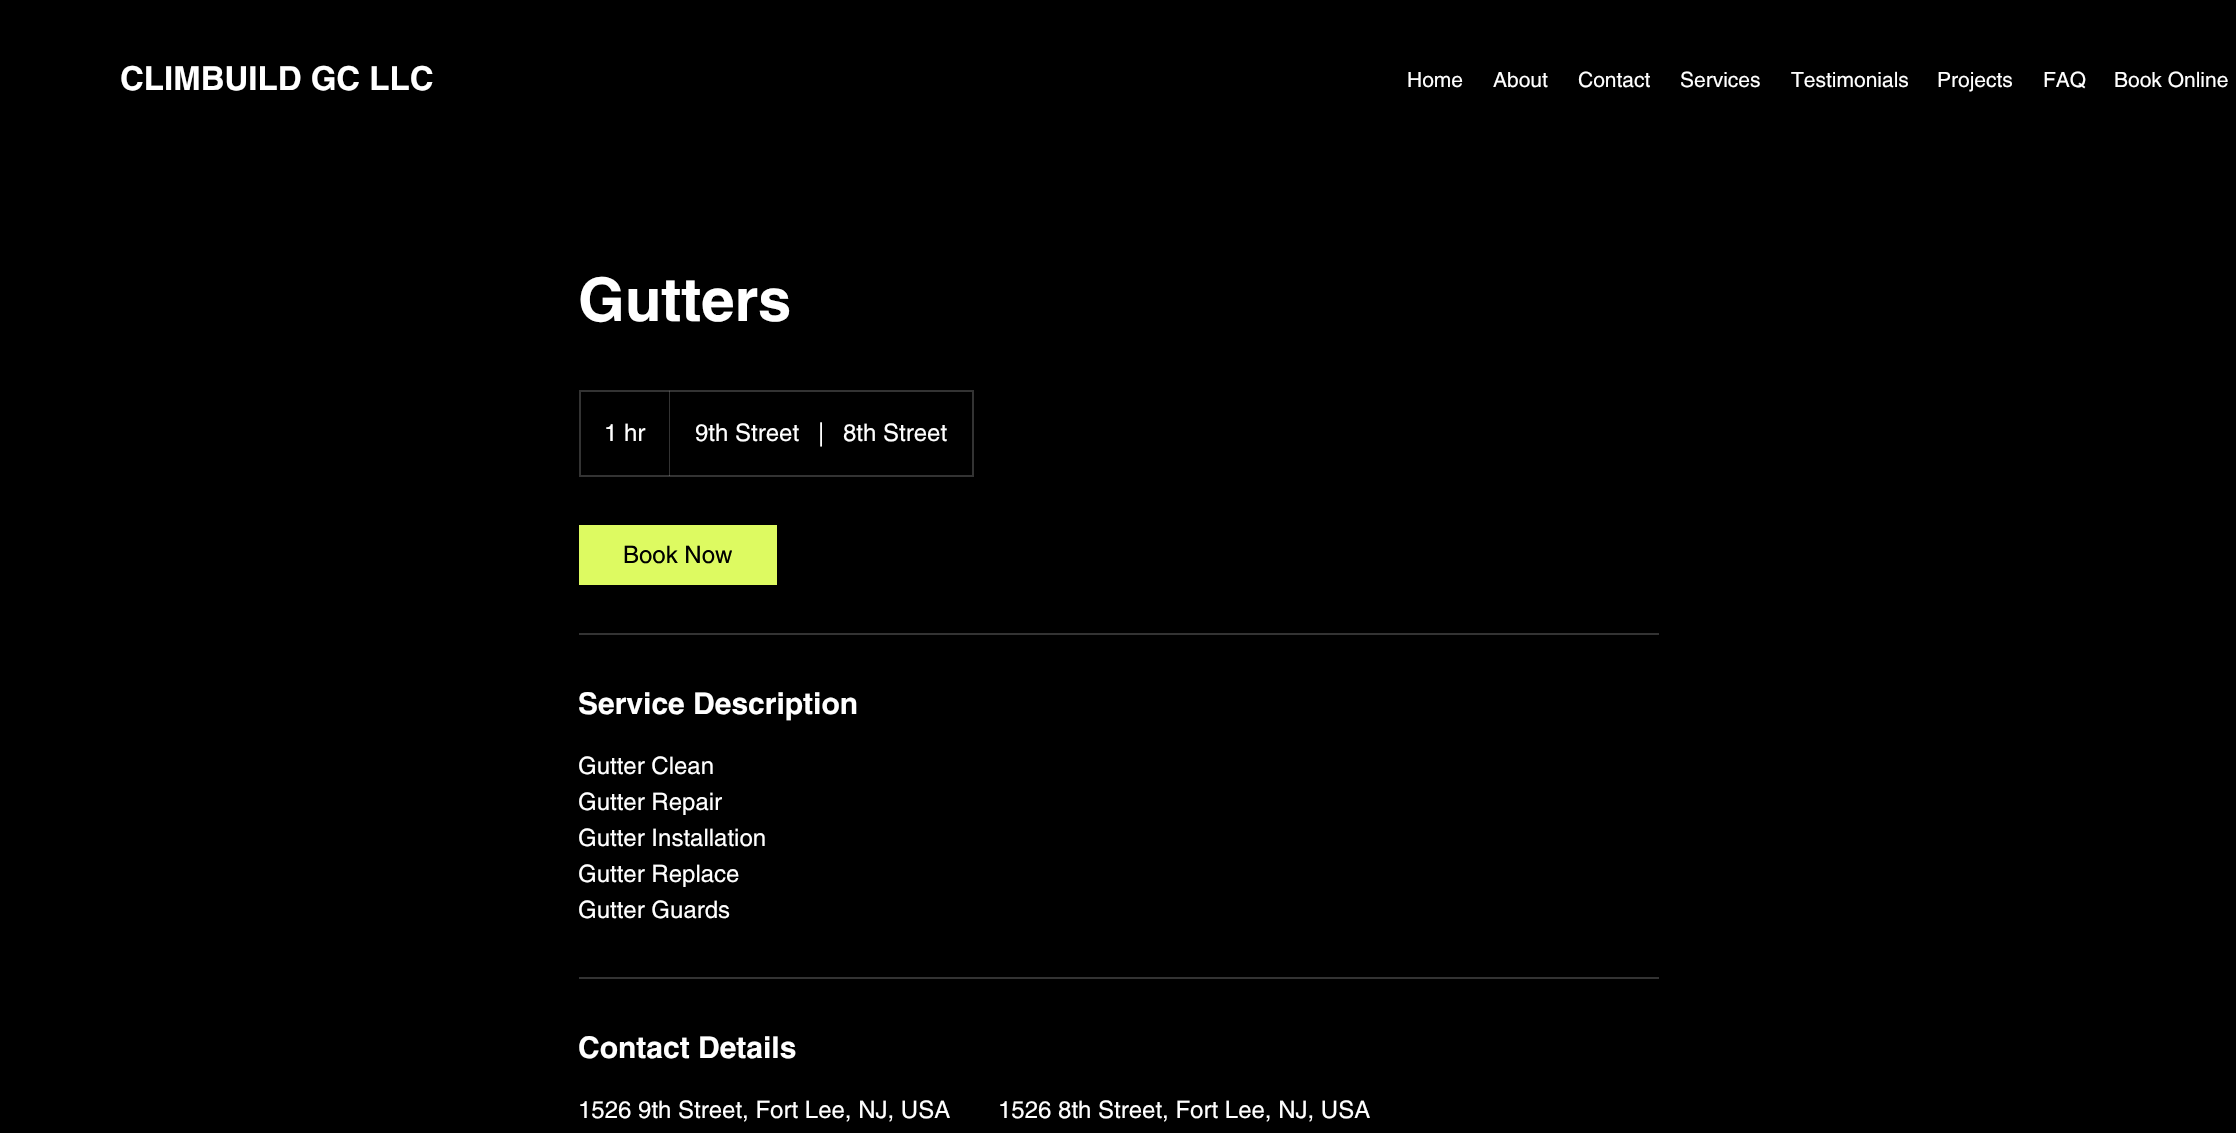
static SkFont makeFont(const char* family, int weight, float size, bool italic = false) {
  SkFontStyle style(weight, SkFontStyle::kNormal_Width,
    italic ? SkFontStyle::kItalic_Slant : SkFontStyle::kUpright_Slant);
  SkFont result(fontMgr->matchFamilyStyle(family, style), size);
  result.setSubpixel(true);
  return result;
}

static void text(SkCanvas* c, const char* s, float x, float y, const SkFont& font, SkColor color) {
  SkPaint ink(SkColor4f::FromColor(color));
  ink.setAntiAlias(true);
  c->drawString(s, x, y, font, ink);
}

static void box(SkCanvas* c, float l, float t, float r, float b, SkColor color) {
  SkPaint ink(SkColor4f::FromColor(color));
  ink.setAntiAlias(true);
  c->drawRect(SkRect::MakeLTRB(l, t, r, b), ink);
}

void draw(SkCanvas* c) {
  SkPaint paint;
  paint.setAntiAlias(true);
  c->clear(0xff000000);
  SkFont face1 = makeFont("helvetica", 700, 33);
  text(c, "CLIMBUILD GC LLC", 120, 90, face1, 0xffffffff);
  SkFont face2 = makeFont("helvetica", 400, 21);
  text(c, "Home", 1407, 87, face2, 0xffffffff);
  text(c, "About", 1493, 87, face2, 0xffffffff);
  text(c, "Contact", 1578, 87, face2, 0xffffffff);
  text(c, "Services", 1680, 87, face2, 0xffffffff);
  text(c, "Testimonials", 1791, 87, face2, 0xffffffff);
  text(c, "Projects", 1937, 87, face2, 0xffffffff);
  text(c, "FAQ", 2043, 87, face2, 0xffffffff);
  text(c, "Book Online", 2114, 87, face2, 0xffffffff);
  SkFont face3 = makeFont("helvetica", 700, 60);
  text(c, "Gutters", 578, 321, face3, 0xffffffff);
  paint.setStyle(SkPaint::kStroke_Style);
  paint.setStrokeWidth(2);
  paint.setColor(0xff333333);
  c->drawRect(SkRect::MakeLTRB(580, 391, 973, 476), paint);
  SkFont face4 = makeFont("helvetica", 400, 24);
  text(c, "1 hr", 604, 441, face4, 0xffffffff);
  paint.setStyle(SkPaint::kFill_Style);
  paint.setColor(0x33ffffff);
  c->drawPath(SkPathBuilder().moveTo(669, 476).lineTo(669, 390).lineTo(670, 392).lineTo(670, 476).close().detach(), paint);
  text(c, "9th Street", 695, 441, face4, 0xffffffff);
  text(c, "|", 818, 441, face4, 0xffffffff);
  text(c, "8th Street", 843, 441, face4, 0xffffffff);
  box(c, 579, 525, 777, 585, 0xffddfa61);
  text(c, "Book Now", 623, 563, face4, 0xff000000);
  box(c, 579, 633, 1659, 635, 0xff333333);
  SkFont face5 = makeFont("helvetica", 700, 30);
  text(c, "Service Description", 578, 714, face5, 0xffffffff);
  text(c, "Gutter Clean", 578, 774, face4, 0xffffffff);
  text(c, "Gutter Repair", 578, 810, face4, 0xffffffff);
  text(c, "Gutter Installation", 578, 846, face4, 0xffffffff);
  text(c, "Gutter Replace", 578, 882, face4, 0xffffffff);
  text(c, "Gutter Guards", 578, 918, face4, 0xffffffff);
  box(c, 579, 977, 1659, 979, 0xff333333);
  text(c, "Contact Details", 578, 1058, face5, 0xffffffff);
  text(c, "1526 9th Street, Fort Lee, NJ, USA", 578, 1118, face4, 0xffffffff);
  text(c, "1526 8th Street, Fort Lee, NJ, USA", 998, 1118, face4, 0xffffffff);
}
